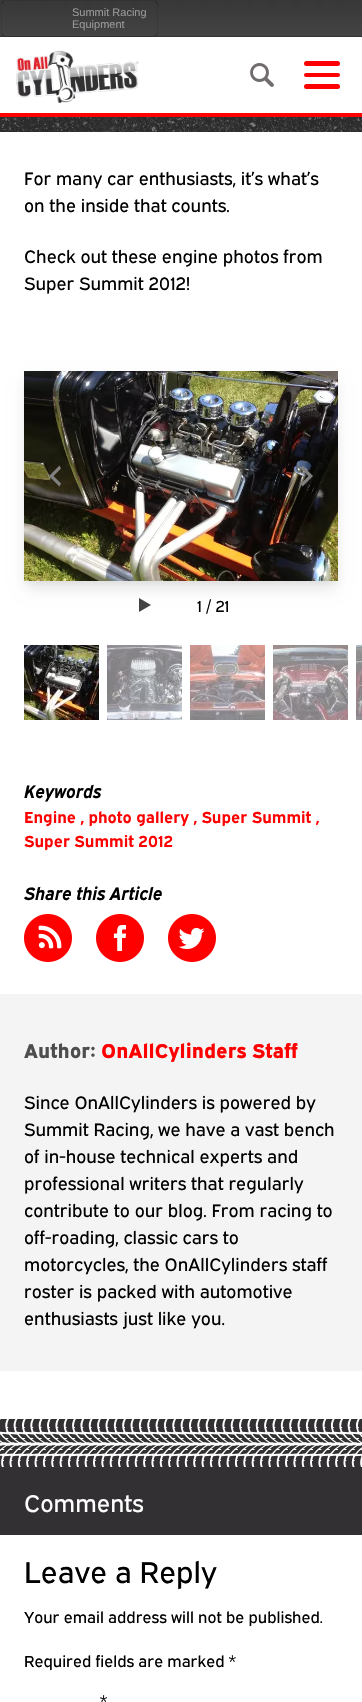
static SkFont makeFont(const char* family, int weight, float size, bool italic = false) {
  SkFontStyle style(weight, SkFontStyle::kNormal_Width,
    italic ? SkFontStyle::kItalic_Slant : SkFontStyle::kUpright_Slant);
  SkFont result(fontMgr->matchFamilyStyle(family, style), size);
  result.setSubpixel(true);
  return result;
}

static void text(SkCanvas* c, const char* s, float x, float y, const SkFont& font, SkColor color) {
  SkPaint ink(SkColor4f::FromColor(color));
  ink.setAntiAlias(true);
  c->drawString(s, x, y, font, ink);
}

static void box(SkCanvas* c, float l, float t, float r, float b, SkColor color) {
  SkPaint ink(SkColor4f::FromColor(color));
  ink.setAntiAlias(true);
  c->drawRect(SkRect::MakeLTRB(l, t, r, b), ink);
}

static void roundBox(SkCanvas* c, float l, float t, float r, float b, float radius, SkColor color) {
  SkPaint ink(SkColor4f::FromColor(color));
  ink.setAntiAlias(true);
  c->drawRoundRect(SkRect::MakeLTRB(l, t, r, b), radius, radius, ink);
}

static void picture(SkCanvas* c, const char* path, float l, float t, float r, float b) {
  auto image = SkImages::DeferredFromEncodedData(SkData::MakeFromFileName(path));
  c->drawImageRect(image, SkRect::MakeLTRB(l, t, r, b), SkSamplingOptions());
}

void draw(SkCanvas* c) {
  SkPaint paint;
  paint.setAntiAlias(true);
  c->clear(0xffffffff);
  picture(c, "img_01.png", 0, 0, 362, 36);
  box(c, 0, 36, 362, 37, 0xff333333);
  c->save();
  c->clipPath(SkPathBuilder(SkPathFillType::kEvenOdd).moveTo(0, 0).lineTo(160, 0).lineTo(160, 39).lineTo(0, 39).close().moveTo(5, 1).lineTo(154, 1).cubicTo(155.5f, 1, 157, 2.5f, 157, 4).lineTo(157, 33).cubicTo(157, 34.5f, 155.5f, 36, 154, 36).lineTo(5, 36).cubicTo(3.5f, 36, 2, 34.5f, 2, 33).lineTo(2, 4).cubicTo(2, 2.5f, 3.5f, 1, 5, 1).close().detach(), true);
  paint.setColor(0xff000000);
  paint.setMaskFilter(SkMaskFilter::MakeBlur(kNormal_SkBlurStyle, 0.5f));
  c->drawRoundRect(SkRect::MakeLTRB(2, 1, 157, 36), 3, 3, paint);
  paint.setMaskFilter(nullptr);
  c->restore();
  SkFont face1 = makeFont("Liberation Sans", 400, 11);
  text(c, "Summit Racing", 72, 16, face1, 0xff999999);
  text(c, "Equipment", 72, 28, face1, 0xff999999);
  box(c, 0, 113, 362, 117, 0xffff0000);
  picture(c, "img_02.png", 16, 50, 139, 103);
  picture(c, "img_03.png", 250, 63, 274, 87);
  roundBox(c, 304, 61, 340, 66, 2.5f, 0xffff0000);
  roundBox(c, 304, 73, 340, 77, 2, 0xffff0000);
  roundBox(c, 304, 84, 340, 89, 2.5f, 0xffff0000);
  picture(c, "img_04.png", 0, 117, 362, 132);
  SkFont face2 = makeFont("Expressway", 400, 18);
  text(c, "For many car enthusiasts, it’s what’s", 24, 185, face2, 0xff000000);
  text(c, "on the inside that counts.", 24, 212, face2, 0xff000000);
  text(c, "Check out these engine photos from", 24, 263, face2, 0xff000000);
  text(c, "Super Summit 2012!", 24, 290, face2, 0xff000000);
  paint.setColor(0x0d000000);
  paint.setMaskFilter(SkMaskFilter::MakeBlur(kNormal_SkBlurStyle, 3));
  c->drawRect(SkRect::MakeLTRB(26, 377, 336, 583), paint);
  paint.setMaskFilter(nullptr);
  paint.setColor(0xff444444);
  c->drawPath(SkPathBuilder().moveTo(139, 598).lineTo(151, 605).lineTo(139, 612).close().detach(), paint);
  paint.setColor(0x1a000000);
  paint.setMaskFilter(SkMaskFilter::MakeBlur(kNormal_SkBlurStyle, 7.5f));
  c->drawRect(SkRect::MakeLTRB(27, 384, 335, 588), paint);
  paint.setMaskFilter(nullptr);
  picture(c, "img_05.png", 24, 371, 338, 581);
  paint.setColor(0xff818080);
  c->drawPath(SkPathBuilder().moveTo(61, 468.5f).lineTo(53.5f, 476).lineTo(61, 483.5f).lineTo(59.5f, 486.5f).lineTo(49, 476).lineTo(59.5f, 465.5f).close().detach(), paint);
  c->drawPath(SkPathBuilder().moveTo(301, 483.5f).lineTo(308.5f, 476).lineTo(301, 468.5f).lineTo(302.5f, 465.5f).lineTo(313, 476).lineTo(302.5f, 486.5f).close().detach(), paint);
  SkFont face3 = makeFont("Expressway", 400, 16);
  text(c, "1 / 21", 197, 612, face3, 0xff000000);
  picture(c, "img_06.png", 24, 645, 99, 720);
  picture(c, "img_07.png", 107, 645, 182, 720);
  picture(c, "img_08.png", 190, 645, 265, 720);
  picture(c, "img_09.png", 273, 645, 348, 720);
  picture(c, "img_10.png", 356, 645, 362, 720);
  SkFont face4 = makeFont("Expressway", 700, 18, true);
  text(c, "Keywords", 24, 798, face4, 0xff000000);
  SkFont face5 = makeFont("Expressway", 700, 16);
  text(c, "Engine , photo gallery , Super Summit ,", 24, 823, face5, 0xffff0000);
  text(c, "Super Summit 2012", 24, 847, face5, 0xffff0000);
  text(c, "Share this Article", 24, 900, face4, 0xff000000);
  picture(c, "img_11.png", 24, 914, 72, 962);
  picture(c, "img_12.png", 96, 914, 144, 962);
  picture(c, "img_13.png", 168, 914, 216, 962);
  box(c, 0, 994, 362, 1371, 0xfff4f4f4);
  SkFont face6 = makeFont("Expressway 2", 400, 20);
  text(c, "Author:", 24, 1058, face6, 0xff4e4e4e);
  text(c, "OnAllCylinders Staff", 101, 1058, face6, 0xffff0000);
  text(c, "Since OnAllCylinders is powered by", 24, 1109, face2, 0xff000000);
  text(c, "Summit Racing, we have a vast bench", 24, 1136, face2, 0xff000000);
  text(c, "of in-house technical experts and", 24, 1163, face2, 0xff000000);
  text(c, "professional writers that regularly", 24, 1190, face2, 0xff000000);
  text(c, "contribute to our blog. From racing to", 24, 1217, face2, 0xff000000);
  text(c, "off-roading, classic cars to", 24, 1244, face2, 0xff000000);
  text(c, "motorcycles, the OnAllCylinders staff", 24, 1271, face2, 0xff000000);
  text(c, "roster is packed with automotive", 24, 1298, face2, 0xff000000);
  text(c, "enthusiasts just like you.", 24, 1325, face2, 0xff000000);
  picture(c, "img_14.png", 0, 1419, 362, 1467);
  box(c, 0, 1467, 362, 1535, 0xff323032);
  SkFont face7 = makeFont("Expressway", 400, 24);
  text(c, "Comments", 24, 1512, face7, 0xffffffff);
  SkFont face8 = makeFont("Expressway", 400, 30);
  text(c, "Leave a Reply", 24, 1583, face8, 0xff000000);
  text(c, "Your email address will not be published.", 24, 1623, face3, 0xff000000);
  text(c, "Required fields are marked *", 24, 1667, face3, 0xff000000);
  text(c, "*", 100, 1707, face3, 0xff000000);
}
